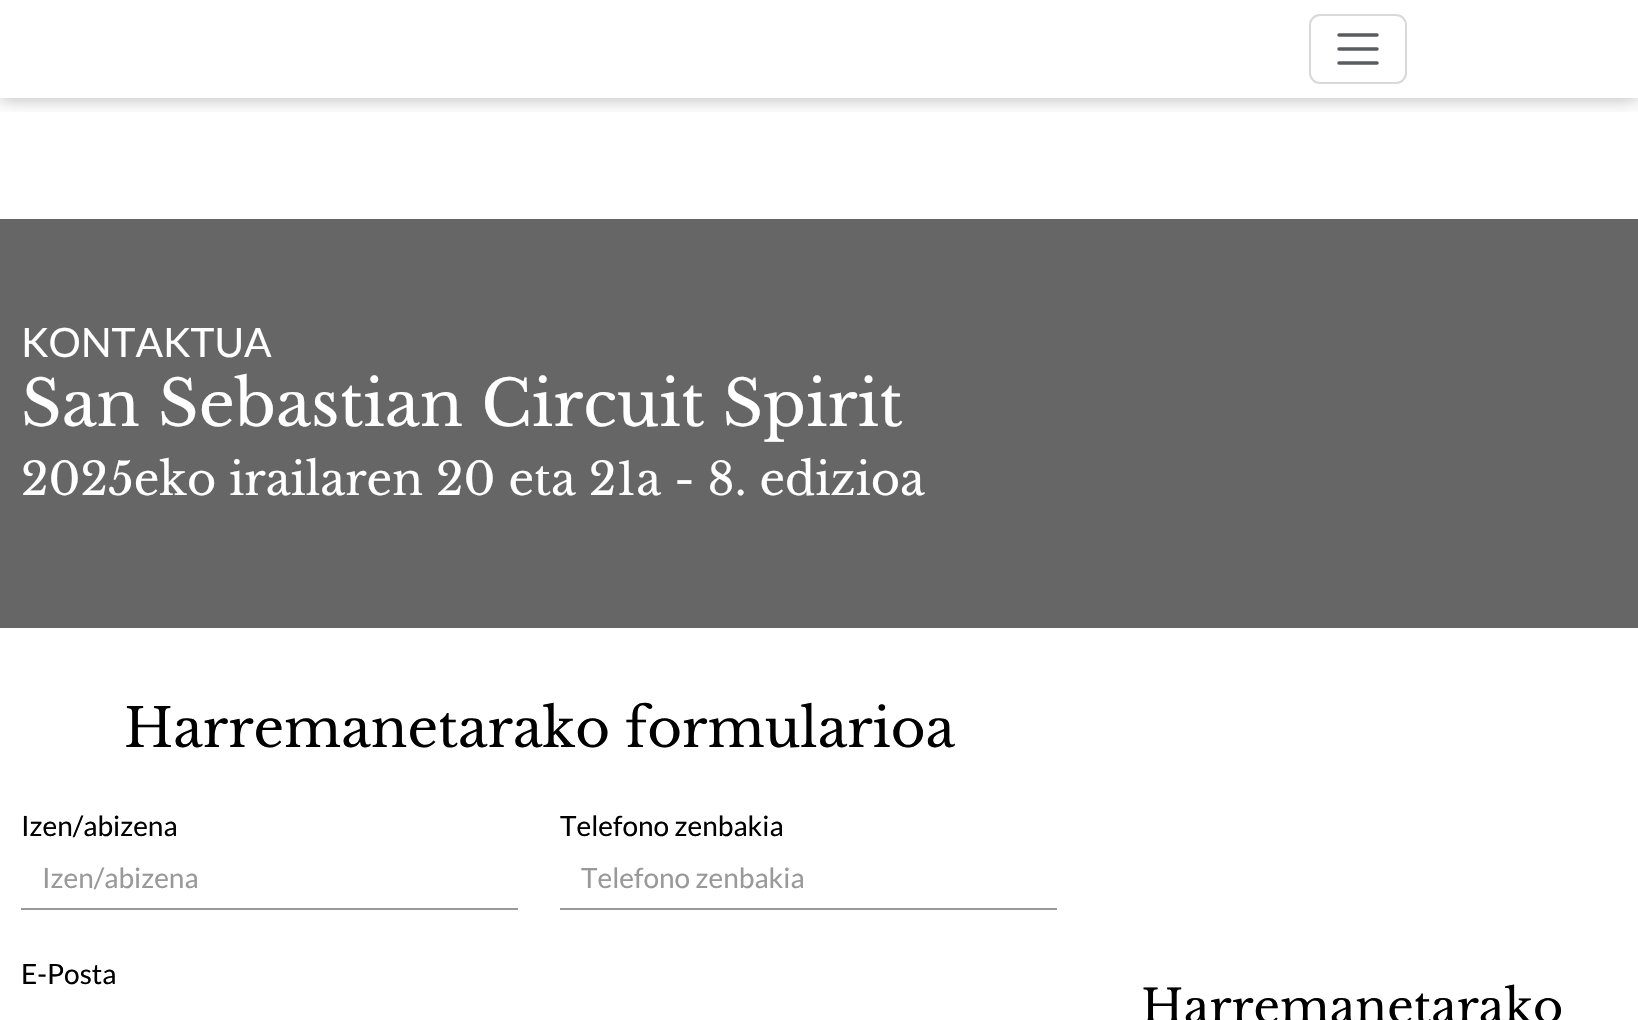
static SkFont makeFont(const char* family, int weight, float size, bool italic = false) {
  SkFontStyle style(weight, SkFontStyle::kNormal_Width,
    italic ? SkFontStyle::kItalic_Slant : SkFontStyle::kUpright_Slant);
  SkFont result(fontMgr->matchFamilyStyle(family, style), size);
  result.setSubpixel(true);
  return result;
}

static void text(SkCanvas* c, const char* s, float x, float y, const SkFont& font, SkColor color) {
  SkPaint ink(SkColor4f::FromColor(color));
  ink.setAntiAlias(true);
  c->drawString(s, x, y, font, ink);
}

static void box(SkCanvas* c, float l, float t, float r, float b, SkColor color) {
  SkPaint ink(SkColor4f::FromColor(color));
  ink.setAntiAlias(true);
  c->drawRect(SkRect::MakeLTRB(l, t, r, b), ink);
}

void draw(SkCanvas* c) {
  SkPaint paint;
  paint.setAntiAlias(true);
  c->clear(0xffffffff);
  c->save();
  c->clipRect(SkRect::MakeLTRB(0, 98, 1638, 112));
  paint.setColor(0x4d000000);
  paint.setMaskFilter(SkMaskFilter::MakeBlur(kNormal_SkBlurStyle, 9));
  c->drawRect(SkRect::MakeLTRB(0, 0, 1638, 98), paint);
  paint.setMaskFilter(nullptr);
  c->restore();
  paint.setStyle(SkPaint::kStroke_Style);
  paint.setStrokeWidth(2);
  paint.setColor(0xffd9d9d9);
  c->drawRoundRect(SkRect::MakeLTRB(1310, 15, 1406, 83), 10, 10, paint);
  paint.setStrokeWidth(3.5f);
  paint.setStrokeCap(SkPaint::kRound_Cap);
  paint.setColor(0xff595c5f);
  c->drawPath(SkPathBuilder().moveTo(1339, 35).lineTo(1377, 35).moveTo(1339, 49).lineTo(1377, 49).moveTo(1339, 63).lineTo(1377, 63).detach(), paint);
  box(c, 0, 219, 1638, 628, 0xff666666);
  SkFont face1 = makeFont("Lato", 400, 40.5f);
  text(c, "KONTAKTUA", 21, 357, face1, 0xffffffff);
  SkFont face2 = makeFont("Libre Baskerville", 400, 63);
  text(c, "San Sebastian Circuit Spirit", 21, 426, face2, 0xffffffff);
  SkFont face3 = makeFont("Libre Baskerville", 400, 44.8f);
  text(c, "2025eko irailaren 20 eta 21a - 8. edizioa", 21, 495, face3, 0xffffffff);
  SkFont face4 = makeFont("Libre Baskerville", 400, 53.25f);
  text(c, "Harremanetarako formularioa", 124, 747, face4, 0xff000000);
  SkFont face5 = makeFont("Lato", 400, 28);
  text(c, "Izen/abizena", 21, 836, face5, 0xff000000);
  box(c, 21, 908, 518, 910, 0xff999999);
  text(c, "Izen/abizena", 42, 888, face5, 0xff999999);
  text(c, "Telefono zenbakia", 560, 836, face5, 0xff000000);
  box(c, 560, 908, 1057, 910, 0xff999999);
  text(c, "Telefono zenbakia", 581, 888, face5, 0xff999999);
  text(c, "E-Posta", 21, 984, face5, 0xff000000);
  SkFont face6 = makeFont("Libre Baskerville", 400, 46.25f);
  text(c, "Harremanetarako", 1141, 1023, face6, 0xff000000);
}
